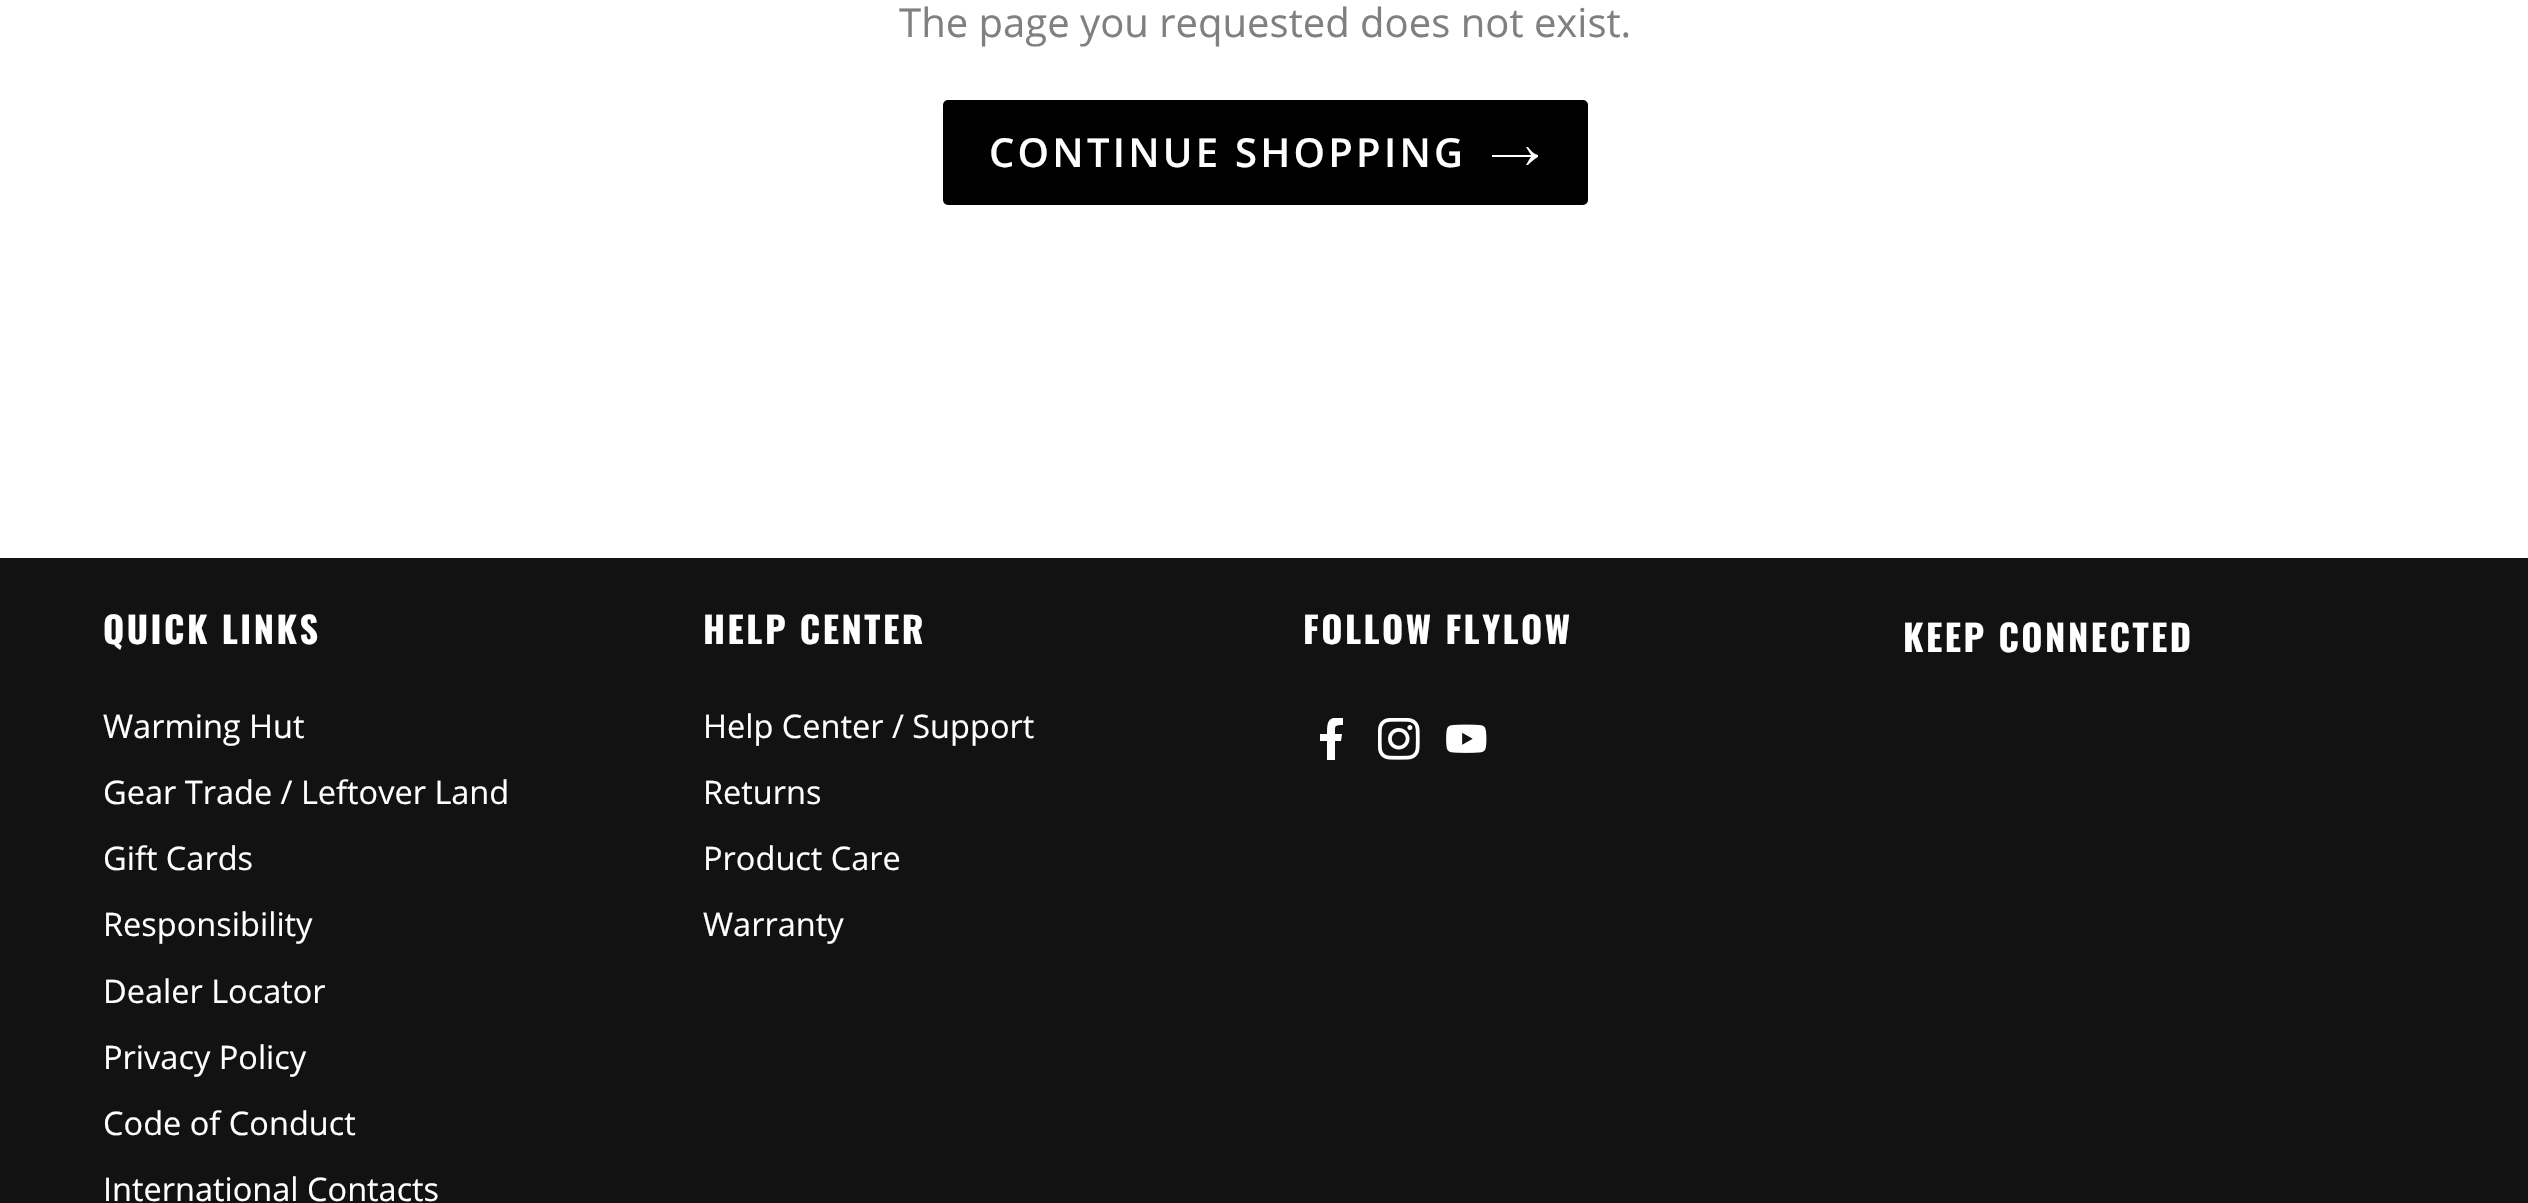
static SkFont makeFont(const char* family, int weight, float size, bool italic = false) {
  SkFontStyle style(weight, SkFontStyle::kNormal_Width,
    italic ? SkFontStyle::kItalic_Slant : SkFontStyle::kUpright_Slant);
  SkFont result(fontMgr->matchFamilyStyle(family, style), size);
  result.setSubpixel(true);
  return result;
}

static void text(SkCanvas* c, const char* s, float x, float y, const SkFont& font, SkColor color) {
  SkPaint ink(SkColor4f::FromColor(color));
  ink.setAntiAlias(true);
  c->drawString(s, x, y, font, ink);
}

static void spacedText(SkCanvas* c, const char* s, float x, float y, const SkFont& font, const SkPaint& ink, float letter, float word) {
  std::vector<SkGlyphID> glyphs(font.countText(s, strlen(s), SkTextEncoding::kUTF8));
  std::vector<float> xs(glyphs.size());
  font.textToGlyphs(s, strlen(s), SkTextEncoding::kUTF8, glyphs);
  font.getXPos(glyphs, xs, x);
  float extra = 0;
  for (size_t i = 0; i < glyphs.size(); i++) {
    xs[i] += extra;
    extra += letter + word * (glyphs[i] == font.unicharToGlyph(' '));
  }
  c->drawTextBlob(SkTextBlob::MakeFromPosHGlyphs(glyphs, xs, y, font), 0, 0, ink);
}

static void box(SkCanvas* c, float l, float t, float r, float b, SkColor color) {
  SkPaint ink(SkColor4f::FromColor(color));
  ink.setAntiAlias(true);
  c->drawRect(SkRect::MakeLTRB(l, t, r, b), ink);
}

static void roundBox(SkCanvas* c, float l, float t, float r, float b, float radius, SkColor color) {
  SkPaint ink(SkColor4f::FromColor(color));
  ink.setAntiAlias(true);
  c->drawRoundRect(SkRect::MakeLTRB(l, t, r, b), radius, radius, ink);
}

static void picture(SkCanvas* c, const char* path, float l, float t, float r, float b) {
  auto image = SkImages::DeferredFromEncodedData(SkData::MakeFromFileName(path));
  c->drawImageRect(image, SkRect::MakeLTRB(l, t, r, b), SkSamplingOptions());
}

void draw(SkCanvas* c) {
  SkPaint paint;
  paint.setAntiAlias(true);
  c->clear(0xffffffff);
  SkFont face1 = makeFont("Open Sans", 400, 40);
  text(c, "The page you requested does not exist.", 899, 37, face1, 0xff808080);
  roundBox(c, 943, 100, 1588, 205, 5, 0xff000000);
  SkFont face2 = makeFont("Open Sans", 600, 40);
  paint.setColor(0xffffffff);
  spacedText(c, "CONTINUE SHOPPING", 989, 167, face2, paint, 3.25f, 0);
  c->drawPath(SkPathBuilder(SkPathFillType::kEvenOdd).moveTo(1528, 147).cubicTo(1531, 151, 1534, 154, 1538, 155).lineTo(1538, 157).cubicTo(1534, 159, 1531, 162, 1528, 165).lineTo(1526, 165).cubicTo(1528, 162, 1529, 159, 1531, 157).lineTo(1492, 157).lineTo(1492, 155).lineTo(1531, 155).lineTo(1526, 147).close().detach(), paint);
  box(c, 0, 558, 2528, 1203, 0xff121212);
  SkFont face3 = makeFont("Oswald", 700, 36.25f);
  spacedText(c, "QUICK LINKS", 103, 644, face3, paint, 2.5f, 0);
  SkFont face4 = makeFont("Open Sans", 400, 32.5f);
  text(c, "Warming Hut", 103, 738, face4, 0xffffffff);
  text(c, "Gear Trade / Leftover Land", 103, 804, face4, 0xffffffff);
  text(c, "Gift Cards", 103, 870, face4, 0xffffffff);
  text(c, "Responsibility", 103, 936, face4, 0xffffffff);
  text(c, "Dealer Locator", 103, 1003, face4, 0xffffffff);
  text(c, "Privacy Policy", 103, 1069, face4, 0xffffffff);
  text(c, "Code of Conduct", 103, 1135, face4, 0xffffffff);
  text(c, "International Contacts", 103, 1201, face4, 0xffffffff);
  spacedText(c, "HELP CENTER", 703, 644, face3, paint, 2.5f, 0);
  text(c, "Help Center / Support", 703, 738, face4, 0xffffffff);
  text(c, "Returns", 703, 804, face4, 0xffffffff);
  text(c, "Product Care", 703, 870, face4, 0xffffffff);
  text(c, "Warranty", 703, 936, face4, 0xffffffff);
  spacedText(c, "FOLLOW FLYLOW", 1303, 644, face3, paint, 2.5f, 0);
  c->save();
  c->clipRect(SkRect::MakeLTRB(1310, 718, 1353, 760));
  c->drawPath(SkPathBuilder().moveTo(1341, 741).lineTo(1342, 734).lineTo(1335, 734).cubicTo(1335, 726, 1334, 725, 1343, 725).lineTo(1343, 718).cubicTo(1328, 716, 1327, 721, 1327, 734).lineTo(1320, 734).lineTo(1320, 741).lineTo(1327, 741).lineTo(1327, 760).lineTo(1335, 760).lineTo(1335, 741).close().detach(), paint);
  c->restore();
  picture(c, "img_01.png", 1378, 718, 1420, 760);
  picture(c, "img_02.png", 1446, 724, 1487, 753);
  spacedText(c, "KEEP CONNECTED", 1903, 652, face3, paint, 2.5f, 0);
}
